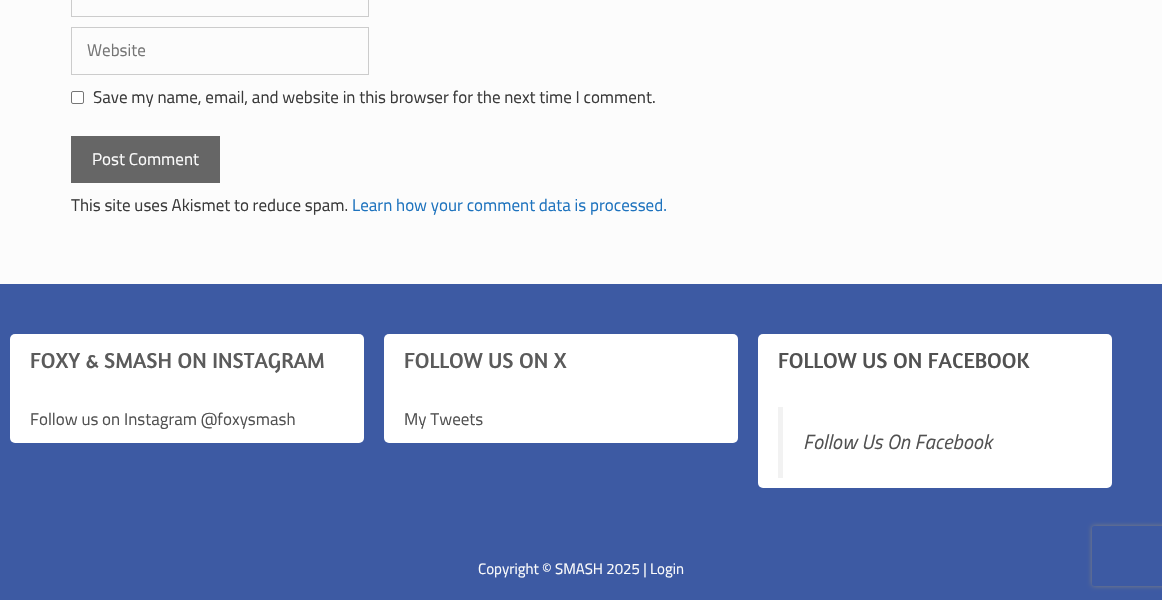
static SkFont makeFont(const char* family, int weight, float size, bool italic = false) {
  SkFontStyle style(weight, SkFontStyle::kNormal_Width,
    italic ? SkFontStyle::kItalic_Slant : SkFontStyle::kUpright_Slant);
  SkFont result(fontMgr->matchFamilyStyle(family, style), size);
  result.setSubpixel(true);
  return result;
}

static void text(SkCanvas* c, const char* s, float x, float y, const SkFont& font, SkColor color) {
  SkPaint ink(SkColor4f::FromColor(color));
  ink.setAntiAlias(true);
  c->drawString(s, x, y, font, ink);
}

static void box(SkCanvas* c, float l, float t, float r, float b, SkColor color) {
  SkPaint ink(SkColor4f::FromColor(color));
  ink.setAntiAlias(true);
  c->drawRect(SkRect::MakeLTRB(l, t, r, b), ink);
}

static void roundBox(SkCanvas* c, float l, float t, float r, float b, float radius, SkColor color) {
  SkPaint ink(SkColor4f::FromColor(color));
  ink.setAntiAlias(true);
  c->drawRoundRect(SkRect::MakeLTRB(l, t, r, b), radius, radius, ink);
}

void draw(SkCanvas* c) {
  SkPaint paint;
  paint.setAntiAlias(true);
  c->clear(0xfffcfcfc);
  paint.setStyle(SkPaint::kStroke_Style);
  paint.setStrokeWidth(1);
  paint.setColor(0xffcccccc);
  c->drawRect(SkRect::MakeLTRB(71.5f, -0.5f, 368.5f, 16.5f), paint);
  c->drawRect(SkRect::MakeLTRB(71.5f, 27.5f, 368.5f, 74.5f), paint);
  SkFont face1 = makeFont("Titillium Web", 400, 17);
  text(c, "Website", 87, 56, face1, 0xff757575);
  paint.setStyle(SkPaint::kFill_Style);
  paint.setColor(0xffffffff);
  c->drawRoundRect(SkRect::MakeLTRB(71.5f, 91.5f, 83.5f, 103.5f), 1.5f, 1.5f, paint);
  paint.setStyle(SkPaint::kStroke_Style);
  paint.setColor(0xff767676);
  c->drawRoundRect(SkRect::MakeLTRB(71.5f, 91.5f, 83.5f, 103.5f), 1.5f, 1.5f, paint);
  text(c, "Save my name, email, and website in this browser for the next time I comment.", 93, 103, face1, 0xff3a3a3a);
  box(c, 71, 136, 220, 183, 0xff666666);
  text(c, "Post Comment", 92, 165, face1, 0xfffcfcfc);
  text(c, "This site uses Akismet to reduce spam.", 71, 211, face1, 0xff3a3a3a);
  text(c, "Learn how your comment data is processed.", 352, 211, face1, 0xff1e73be);
  box(c, 0, 284, 1162, 600, 0xff3d5aa3);
  roundBox(c, 10, 334, 364, 443, 5, 0xffffffff);
  SkFont face2 = makeFont("Amaranth", 400, 22);
  text(c, "FOXY & SMASH ON INSTAGRAM", 30, 368, face2, 0xff5b5b5b);
  text(c, "Follow us on Instagram @foxysmash", 30, 425, face1, 0xff515151);
  roundBox(c, 384, 334, 738, 443, 5, 0xffffffff);
  text(c, "FOLLOW US ON X", 404, 368, face2, 0xff5b5b5b);
  text(c, "My Tweets", 404, 425, face1, 0xff515151);
  roundBox(c, 758, 334, 1112, 488, 5, 0xffffffff);
  text(c, "FOLLOW US ON FACEBOOK", 778, 368, face2, 0xff515151);
  box(c, 778, 407, 783, 478, 0xfff2f2f2);
  SkFont face3 = makeFont("Titillium Web", 400, 20.5f, true);
  text(c, "Follow Us On Facebook", 803, 449, face3, 0xff515151);
  SkFont face4 = makeFont("Titillium Web", 400, 15);
  text(c, "Copyright © SMASH 2025 | Login", 478, 574, face4, 0xfffcfcfc);
  c->save();
  c->clipPath(SkPathBuilder(SkPathFillType::kEvenOdd).moveTo(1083, 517).lineTo(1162, 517).lineTo(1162, 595).lineTo(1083, 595).close().moveTo(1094, 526).lineTo(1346, 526).cubicTo(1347, 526, 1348, 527, 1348, 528).lineTo(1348, 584).cubicTo(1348, 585, 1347, 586, 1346, 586).lineTo(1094, 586).cubicTo(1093, 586, 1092, 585, 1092, 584).lineTo(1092, 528).cubicTo(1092, 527, 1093, 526, 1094, 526).close().detach(), true);
  paint.setStyle(SkPaint::kFill_Style);
  paint.setColor(0xff808080);
  paint.setMaskFilter(SkMaskFilter::MakeBlur(kNormal_SkBlurStyle, 2.5f));
  c->drawRoundRect(SkRect::MakeLTRB(1092, 526, 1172, 586), 2, 2, paint);
  paint.setMaskFilter(nullptr);
  c->restore();
}
